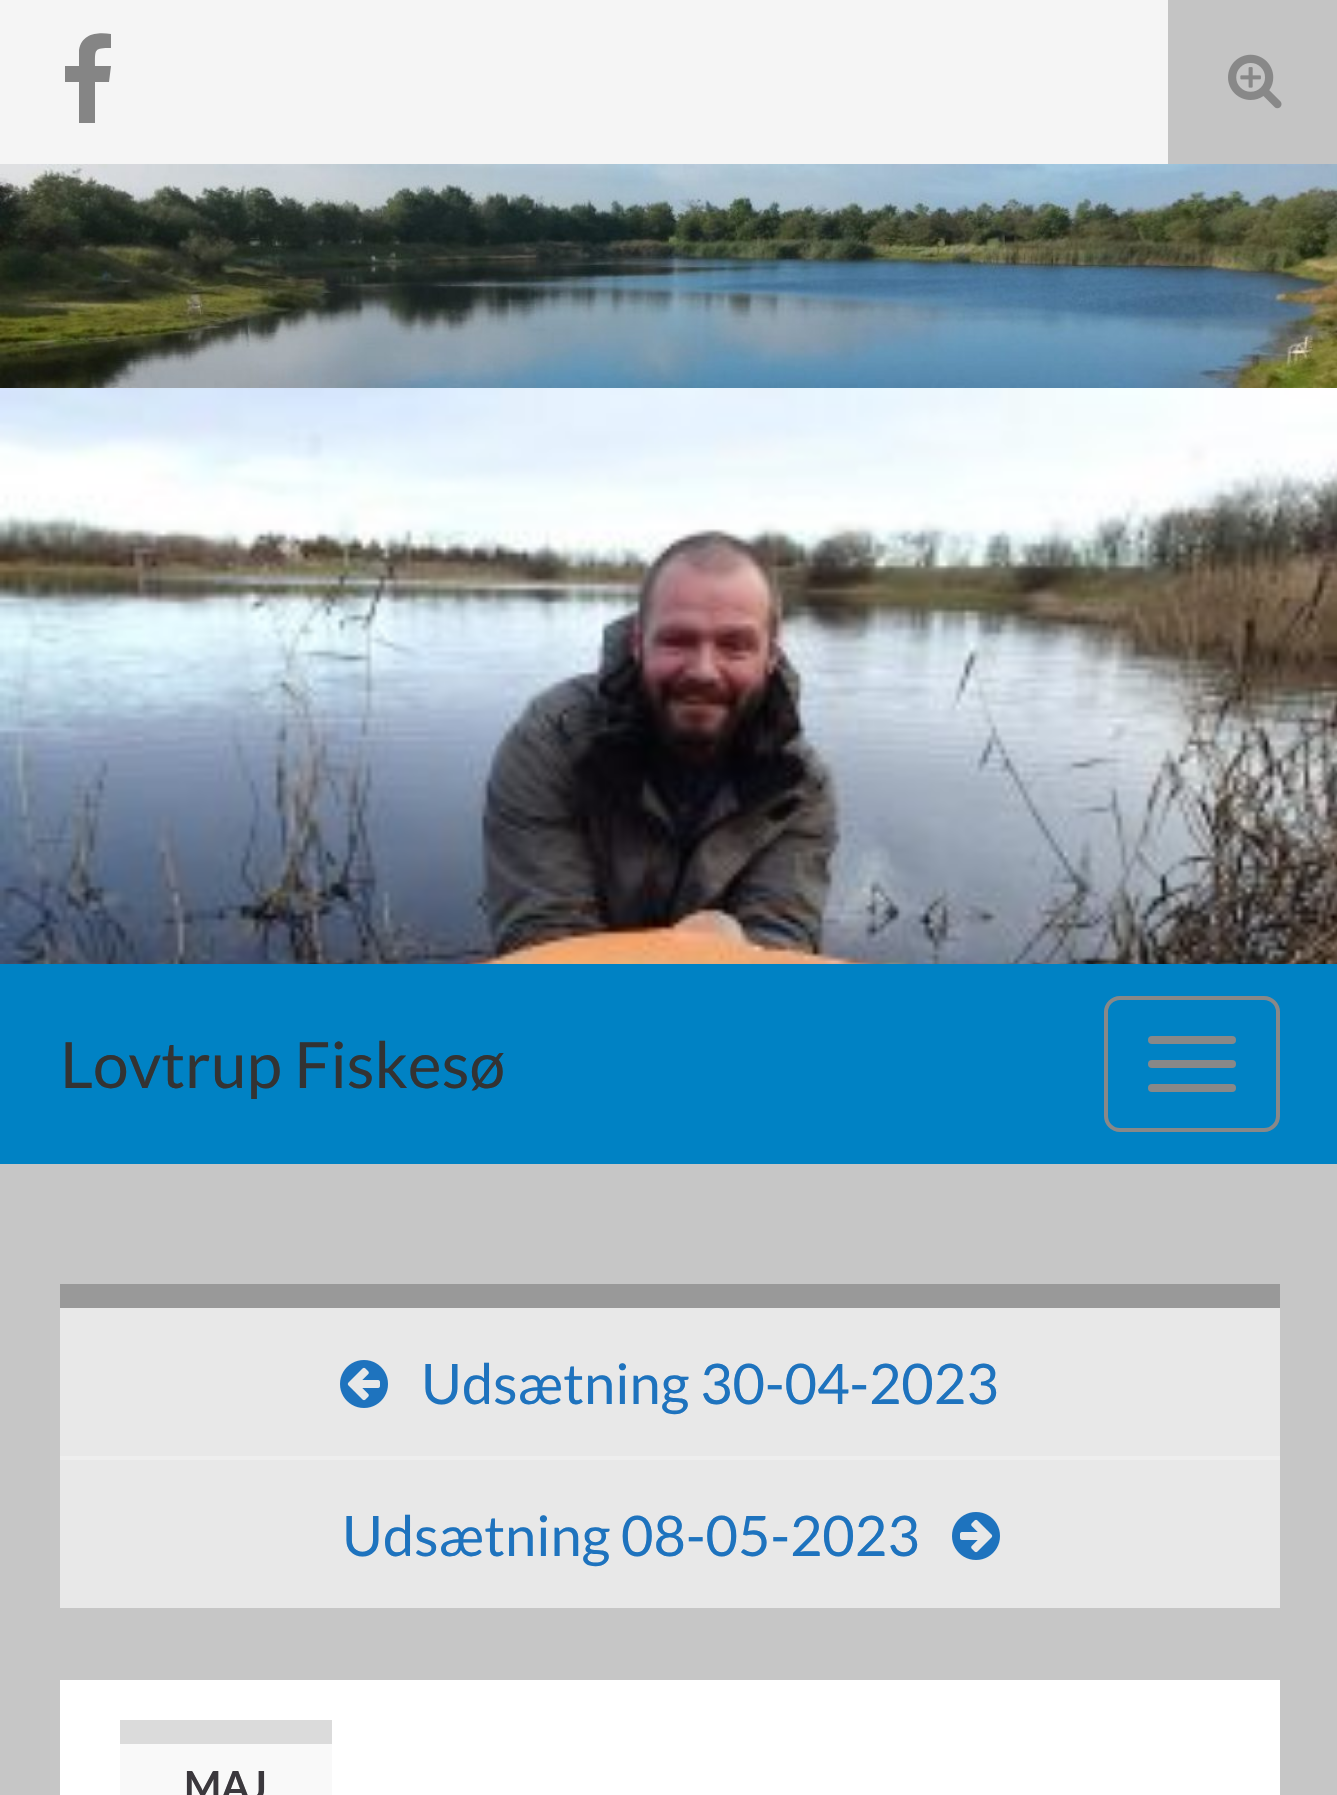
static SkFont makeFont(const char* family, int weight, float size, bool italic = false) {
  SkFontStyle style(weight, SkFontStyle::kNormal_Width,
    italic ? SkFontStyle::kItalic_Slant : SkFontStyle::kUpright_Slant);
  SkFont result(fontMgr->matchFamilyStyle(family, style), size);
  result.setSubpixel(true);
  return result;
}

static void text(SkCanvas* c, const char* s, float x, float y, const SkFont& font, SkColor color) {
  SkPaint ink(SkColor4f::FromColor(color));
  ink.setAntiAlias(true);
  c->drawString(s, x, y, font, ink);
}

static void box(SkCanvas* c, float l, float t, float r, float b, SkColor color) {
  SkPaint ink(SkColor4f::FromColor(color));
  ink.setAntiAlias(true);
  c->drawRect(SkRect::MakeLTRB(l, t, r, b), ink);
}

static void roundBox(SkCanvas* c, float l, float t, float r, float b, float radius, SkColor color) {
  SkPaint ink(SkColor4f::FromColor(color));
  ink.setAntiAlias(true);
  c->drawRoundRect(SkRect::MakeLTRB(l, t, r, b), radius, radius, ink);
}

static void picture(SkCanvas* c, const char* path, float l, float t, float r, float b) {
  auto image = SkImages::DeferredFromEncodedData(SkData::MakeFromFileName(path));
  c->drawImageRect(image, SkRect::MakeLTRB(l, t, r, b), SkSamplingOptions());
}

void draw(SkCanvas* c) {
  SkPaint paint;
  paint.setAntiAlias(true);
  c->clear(0xfff5f5f5);
  paint.setColor(0xff858585);
  c->drawPath(SkPathBuilder().moveTo(111, 34).lineTo(111, 48).cubicTo(94, 48, 95, 49, 95, 66).lineTo(111, 66).lineTo(109, 82).lineTo(95, 82).lineTo(95, 123).lineTo(79, 123).lineTo(79, 82).lineTo(65, 82).lineTo(65, 66).lineTo(79, 66).lineTo(79, 50).cubicTo(82, 33, 98, 32, 111, 34).close().detach(), paint);
  box(c, 1168, 0, 1337, 164, 0xffc4c4c4);
  picture(c, "img_01.png", 1228, 54, 1282, 109);
  picture(c, "img_02.png", 0, 164, 1337, 388);
  picture(c, "img_03.png", 0, 388, 1337, 964);
  box(c, 0, 964, 1337, 1164, 0xff0082c4);
  SkFont face1 = makeFont("Lato", 400, 64);
  text(c, "Lovtrup Fiskesø", 60, 1088, face1, 0xff333333);
  paint.setStyle(SkPaint::kStroke_Style);
  paint.setStrokeWidth(4);
  paint.setColor(0xff888888);
  c->drawRoundRect(SkRect::MakeLTRB(1106, 998, 1278, 1130), 14, 14, paint);
  roundBox(c, 1148, 1036, 1236, 1044, 4, 0xff888888);
  roundBox(c, 1148, 1060, 1236, 1068, 4, 0xff888888);
  roundBox(c, 1148, 1084, 1236, 1092, 4, 0xff888888);
  box(c, 0, 1164, 1337, 1795, 0xffc6c6c6);
  box(c, 60, 1308, 1280, 1608, 0xffe8e8e8);
  box(c, 60, 1284, 1280, 1308, 0xff999999);
  picture(c, "img_04.png", 340, 1360, 388, 1408);
  SkFont face2 = makeFont("Lato", 400, 56);
  text(c, "Udsætning 30-04-2023", 421, 1404, face2, 0xff1e73be);
  box(c, 60, 1456, 1280, 1460, 0xffeeeeee);
  text(c, "Udsætning 08-05-2023", 342, 1556, face2, 0xff1e73be);
  picture(c, "img_05.png", 952, 1512, 1000, 1560);
  box(c, 60, 1680, 1280, 1795, 0xffffffff);
  box(c, 120, 1744, 332, 1795, 0xfff9f9f9);
  box(c, 120, 1720, 332, 1744, 0xffdbdbdb);
  SkFont face3 = makeFont("Lato", 700, 40);
  text(c, "MAJ", 184, 1800, face3, 0xff3b383d);
}
